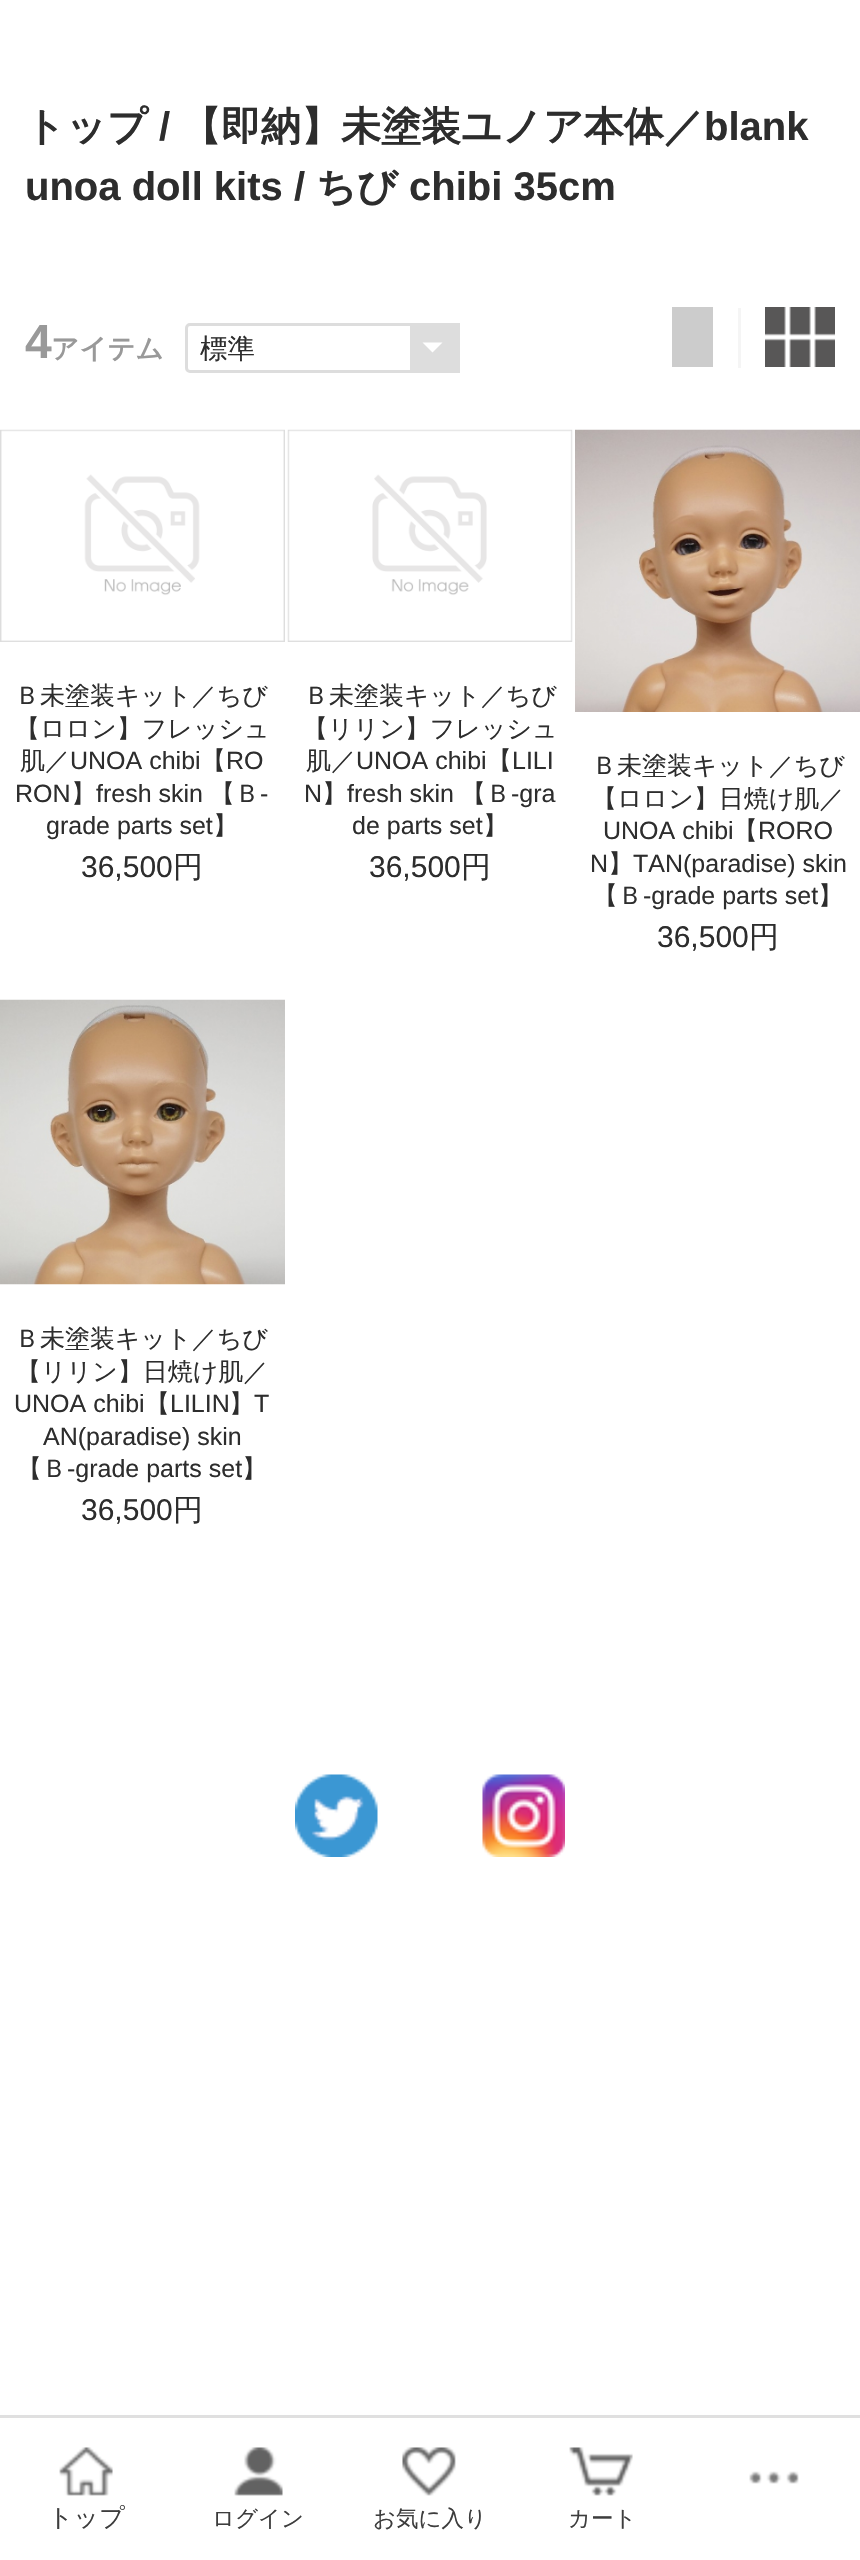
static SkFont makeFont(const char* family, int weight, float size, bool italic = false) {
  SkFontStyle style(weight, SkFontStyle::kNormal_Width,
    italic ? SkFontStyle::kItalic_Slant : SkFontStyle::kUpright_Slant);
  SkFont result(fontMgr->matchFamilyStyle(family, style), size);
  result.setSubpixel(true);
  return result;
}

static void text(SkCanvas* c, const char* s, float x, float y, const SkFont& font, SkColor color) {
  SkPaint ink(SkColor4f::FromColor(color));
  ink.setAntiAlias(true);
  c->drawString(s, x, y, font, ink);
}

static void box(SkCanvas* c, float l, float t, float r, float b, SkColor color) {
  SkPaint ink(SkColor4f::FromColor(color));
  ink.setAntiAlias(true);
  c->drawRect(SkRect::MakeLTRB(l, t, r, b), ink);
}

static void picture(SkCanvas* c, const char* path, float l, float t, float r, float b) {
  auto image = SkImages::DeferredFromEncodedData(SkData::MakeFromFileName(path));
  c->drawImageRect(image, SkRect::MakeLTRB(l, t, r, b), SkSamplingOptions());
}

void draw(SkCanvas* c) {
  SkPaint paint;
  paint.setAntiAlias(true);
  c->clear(0xffffffff);
  SkFont face1 = makeFont("WenQuanYi Zen Hei", 700, 40);
  text(c, "トップ", 25, 140, face1, 0xff2d2d2d);
  SkFont face2 = makeFont("Liberation Sans", 700, 40);
  text(c, "/", 159, 140, face2, 0xff2d2d2d);
  text(c, "【即納】未塗装ユノア本体／", 181, 140, face1, 0xff2d2d2d);
  text(c, "blank", 704, 140, face2, 0xff2d2d2d);
  text(c, "unoa doll kits /", 25, 200, face2, 0xff2d2d2d);
  text(c, "ちび", 316, 200, face1, 0xff2d2d2d);
  text(c, "chibi 35cm", 409, 200, face2, 0xff2d2d2d);
  SkFont face3 = makeFont("Liberation Sans", 700, 48);
  text(c, "4", 25, 358, face3, 0xff999999);
  SkFont face4 = makeFont("WenQuanYi Zen Hei", 700, 27.5f);
  text(c, "アイテム", 51, 358, face4, 0xff999999);
  box(c, 410, 323, 460, 373, 0xffdddddd);
  paint.setColor(0xffffffff);
  c->drawPath(SkPathBuilder().moveTo(422.5f, 342.5f).lineTo(442.5f, 342.5f).lineTo(432.5f, 352.5f).close().detach(), paint);
  paint.setStyle(SkPaint::kStroke_Style);
  paint.setStrokeWidth(3);
  paint.setColor(0xffdddddd);
  c->drawRoundRect(SkRect::MakeLTRB(186.5f, 324.5f, 458.5f, 371.5f), 3.5f, 3.5f, paint);
  SkFont face5 = makeFont("WenQuanYi Zen Hei", 500, 27.5f);
  text(c, "標準", 200, 358, face5, 0xff2d2d2d);
  box(c, 738, 308, 741, 368, 0xfff5f5f5);
  box(c, 672, 307, 713, 367, 0xffcccccc);
  picture(c, "img_01.png", 765, 307, 835, 367);
  picture(c, "img_02.png", 0, 429, 285, 642);
  SkFont face6 = makeFont("WenQuanYi Zen Hei", 500, 25);
  text(c, "Ｂ未塗装キット／ちび", 15, 704, face6, 0xff2d2d2d);
  text(c, "【ロロン】フレッシュ", 15, 737, face6, 0xff2d2d2d);
  text(c, "肌／", 20, 769, face6, 0xff2d2d2d);
  SkFont face7 = makeFont("Liberation Sans", 400, 25);
  text(c, "UNOA chibi", 70, 769, face7, 0xff2d2d2d);
  text(c, "【", 201, 769, face6, 0xff2d2d2d);
  text(c, "RO", 226, 769, face7, 0xff2d2d2d);
  text(c, "RON", 15, 802, face7, 0xff2d2d2d);
  text(c, "】", 71, 802, face6, 0xff2d2d2d);
  text(c, "fresh skin", 96, 802, face7, 0xff2d2d2d);
  text(c, "【Ｂ", 210, 802, face6, 0xff2d2d2d);
  text(c, "-", 260, 802, face7, 0xff2d2d2d);
  text(c, "grade parts set", 46, 834, face7, 0xff2d2d2d);
  text(c, "】", 213, 834, face6, 0xff2d2d2d);
  SkFont face8 = makeFont("Liberation Sans", 400, 30);
  text(c, "36,500", 81, 877, face8, 0xff2d2d2d);
  SkFont face9 = makeFont("WenQuanYi Zen Hei", 500, 30);
  text(c, "円", 173, 877, face9, 0xff2d2d2d);
  picture(c, "img_03.png", 287, 429, 573, 642);
  text(c, "Ｂ未塗装キット／ちび", 304, 704, face6, 0xff2d2d2d);
  text(c, "【リリン】フレッシュ", 303, 737, face6, 0xff2d2d2d);
  text(c, "肌／", 306, 769, face6, 0xff2d2d2d);
  text(c, "UNOA chibi", 356, 769, face7, 0xff2d2d2d);
  text(c, "【", 487, 769, face6, 0xff2d2d2d);
  text(c, "LILI", 512, 769, face7, 0xff2d2d2d);
  text(c, "N", 304, 802, face7, 0xff2d2d2d);
  text(c, "】", 322, 802, face6, 0xff2d2d2d);
  text(c, "fresh skin", 347, 802, face7, 0xff2d2d2d);
  text(c, "【Ｂ", 461, 802, face6, 0xff2d2d2d);
  text(c, "-gra", 511, 802, face7, 0xff2d2d2d);
  text(c, "de parts set", 352, 834, face7, 0xff2d2d2d);
  text(c, "】", 483, 834, face6, 0xff2d2d2d);
  text(c, "36,500", 369, 877, face8, 0xff2d2d2d);
  text(c, "円", 461, 877, face9, 0xff2d2d2d);
  picture(c, "img_04.png", 575, 429, 860, 712);
  text(c, "Ｂ未塗装キット／ちび", 592, 774, face6, 0xff2d2d2d);
  text(c, "【ロロン】日焼け肌／", 592, 807, face6, 0xff2d2d2d);
  text(c, "UNOA chibi", 603, 839, face7, 0xff2d2d2d);
  text(c, "【", 733, 839, face6, 0xff2d2d2d);
  text(c, "RORO", 758, 839, face7, 0xff2d2d2d);
  text(c, "N", 590, 872, face7, 0xff2d2d2d);
  text(c, "】", 608, 872, face6, 0xff2d2d2d);
  text(c, "TAN(paradise) skin", 633, 872, face7, 0xff2d2d2d);
  text(c, "【Ｂ", 593, 904, face6, 0xff2d2d2d);
  text(c, "-grade parts set", 643, 904, face7, 0xff2d2d2d);
  text(c, "】", 818, 904, face6, 0xff2d2d2d);
  text(c, "36,500", 657, 947, face8, 0xff2d2d2d);
  text(c, "円", 749, 947, face9, 0xff2d2d2d);
  picture(c, "img_05.png", 0, 999, 285, 1285);
  text(c, "Ｂ未塗装キット／ちび", 15, 1347, face6, 0xff2d2d2d);
  text(c, "【リリン】日焼け肌／", 16, 1380, face6, 0xff2d2d2d);
  text(c, "UNOA chibi", 14, 1412, face7, 0xff2d2d2d);
  text(c, "【", 145, 1412, face6, 0xff2d2d2d);
  text(c, "LILIN", 170, 1412, face7, 0xff2d2d2d);
  text(c, "】", 229, 1412, face6, 0xff2d2d2d);
  text(c, "T", 254, 1412, face7, 0xff2d2d2d);
  text(c, "AN(paradise) skin", 43, 1445, face7, 0xff2d2d2d);
  text(c, "【Ｂ", 17, 1477, face6, 0xff2d2d2d);
  text(c, "-grade parts set", 67, 1477, face7, 0xff2d2d2d);
  text(c, "】", 242, 1477, face6, 0xff2d2d2d);
  text(c, "36,500", 81, 1520, face8, 0xff2d2d2d);
  text(c, "円", 173, 1520, face9, 0xff2d2d2d);
  picture(c, "img_06.png", 295, 1774, 378, 1857);
  picture(c, "img_07.png", 482, 1774, 565, 1857);
  box(c, 0, 2415, 860, 2418, 0xffe0e0e0);
  picture(c, "img_08.png", 749, 2471, 799, 2484);
  picture(c, "img_09.png", 59, 2447, 113, 2496);
  text(c, "トップ", 48, 2526, face6, 0xff3d3d3d);
  picture(c, "img_10.png", 234, 2447, 283, 2496);
  SkFont face10 = makeFont("WenQuanYi Zen Hei", 500, 22.5f);
  text(c, "ログイン", 212, 2526, face10, 0xff3d3d3d);
  picture(c, "img_11.png", 402, 2447, 456, 2496);
  text(c, "お気に入り", 373, 2526, face10, 0xff3d3d3d);
  picture(c, "img_12.png", 569, 2447, 633, 2496);
  text(c, "カート", 568, 2526, face10, 0xff3d3d3d);
}
